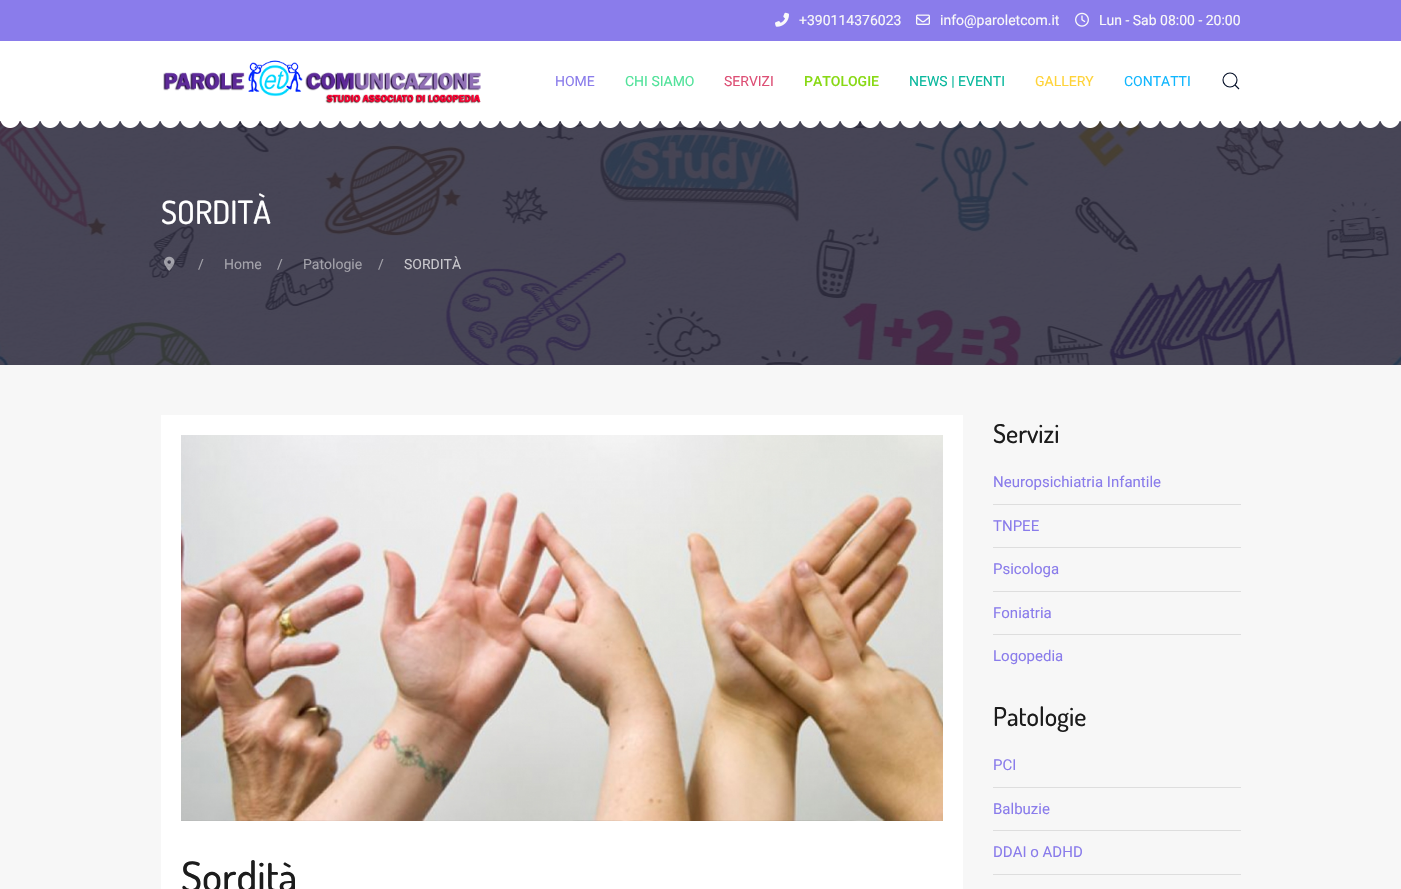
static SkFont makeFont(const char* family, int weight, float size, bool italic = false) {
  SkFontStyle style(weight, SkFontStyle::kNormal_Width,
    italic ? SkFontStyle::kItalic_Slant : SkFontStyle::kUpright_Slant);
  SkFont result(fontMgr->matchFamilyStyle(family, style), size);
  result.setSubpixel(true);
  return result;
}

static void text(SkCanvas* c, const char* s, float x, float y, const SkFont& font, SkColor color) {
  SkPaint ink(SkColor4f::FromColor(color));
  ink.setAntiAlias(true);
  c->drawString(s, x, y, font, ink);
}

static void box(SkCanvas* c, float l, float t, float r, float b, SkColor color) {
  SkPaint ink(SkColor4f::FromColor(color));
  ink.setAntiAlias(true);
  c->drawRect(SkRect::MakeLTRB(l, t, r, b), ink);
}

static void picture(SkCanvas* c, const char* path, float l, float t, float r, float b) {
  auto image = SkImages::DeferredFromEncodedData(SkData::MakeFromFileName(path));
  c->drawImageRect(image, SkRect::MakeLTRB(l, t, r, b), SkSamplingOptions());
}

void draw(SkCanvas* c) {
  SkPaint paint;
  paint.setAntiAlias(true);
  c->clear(0xffffffff);
  box(c, 0, 0, 1401, 41, 0xff8a7ceb);
  picture(c, "img_01.png", 775, 12, 789, 27);
  SkFont face1 = makeFont("Roboto", 400, 14);
  text(c, "+390114376023", 799, 25, face1, 0xfff9f9f9);
  picture(c, "img_02.png", 916, 14, 930, 25);
  text(c, "info@paroletcom.it", 940, 25, face1, 0xfff9f9f9);
  picture(c, "img_03.png", 1075, 12, 1089, 27);
  text(c, "Lun - Sab 08:00 - 20:00", 1099, 25, face1, 0xfff9f9f9);
  picture(c, "img_04.png", 163, 60, 481, 104);
  text(c, "HOME", 555, 86, face1, 0xff8a7ceb);
  text(c, "CHI SIAMO", 625, 86, face1, 0xff51e29a);
  text(c, "SERVIZI", 724, 86, face1, 0xffdd4f75);
  SkFont face2 = makeFont("Roboto", 500, 14);
  text(c, "PATOLOGIE", 804, 86, face2, 0xff88d914);
  text(c, "NEWS | EVENTI", 909, 86, face1, 0xff09b89d);
  text(c, "GALLERY", 1035, 86, face1, 0xffffd338);
  text(c, "CONTATTI", 1124, 86, face1, 0xff10b6fe);
  paint.setStyle(SkPaint::kStroke_Style);
  paint.setStrokeWidth(1.1f);
  paint.setColor(0xff020d26);
  c->drawCircle(1230, 80, 7, paint);
  c->drawPath(SkPathBuilder().moveTo(1235, 85).lineTo(1239, 89).close().detach(), paint);
  picture(c, "img_06.png", 0, 121, 1401, 365);
  picture(c, "img_05.png", 0, 121, 1401, 128);
  SkFont face3 = makeFont("Dosis", 500, 32);
  text(c, "SORDITÀ", 161, 224, face3, 0xffffffff);
  picture(c, "img_07.png", 164, 256, 175, 271);
  text(c, "/", 198, 269, face1, 0xffa3a2aa);
  text(c, "Home", 224, 269, face1, 0xffa3a2aa);
  text(c, "/", 277, 269, face1, 0xffa3a2aa);
  text(c, "Patologie", 303, 269, face1, 0xffa3a2aa);
  text(c, "/", 378, 269, face1, 0xffa3a2aa);
  text(c, "SORDITÀ", 404, 269, face1, 0xffc8c7cc);
  box(c, 0, 365, 1401, 889, 0xfff7f7f7);
  SkFont face4 = makeFont("Dosis", 500, 26);
  text(c, "Servizi", 993, 443, face4, 0xff1c1c1c);
  SkFont face5 = makeFont("Roboto", 400, 15);
  text(c, "Neuropsichiatria Infantile", 993, 487, face5, 0xff8a7ceb);
  box(c, 993, 504, 1241, 505, 0xffdedede);
  text(c, "TNPEE", 993, 531, face5, 0xff8a7ceb);
  box(c, 993, 547, 1241, 548, 0xffdedede);
  text(c, "Psicologa", 993, 574, face5, 0xff8a7ceb);
  box(c, 993, 591, 1241, 592, 0xffdedede);
  text(c, "Foniatria", 993, 618, face5, 0xff8a7ceb);
  box(c, 993, 634, 1241, 635, 0xffdedede);
  text(c, "Logopedia", 993, 661, face5, 0xff8a7ceb);
  text(c, "Patologie", 993, 726, face4, 0xff1c1c1c);
  text(c, "PCI", 993, 770, face5, 0xff8a7ceb);
  box(c, 993, 787, 1241, 788, 0xffdedede);
  text(c, "Balbuzie", 993, 814, face5, 0xff8a7ceb);
  box(c, 993, 830, 1241, 831, 0xffdedede);
  text(c, "DDAI o ADHD", 993, 857, face5, 0xff8a7ceb);
  box(c, 993, 874, 1241, 875, 0xffdedede);
  box(c, 161, 415, 963, 889, 0xffffffff);
  picture(c, "img_08.png", 181, 435, 943, 821);
  SkFont face6 = makeFont("Dosis", 500, 42);
  text(c, "Sordità", 181, 892, face6, 0xff1c1c1c);
}
